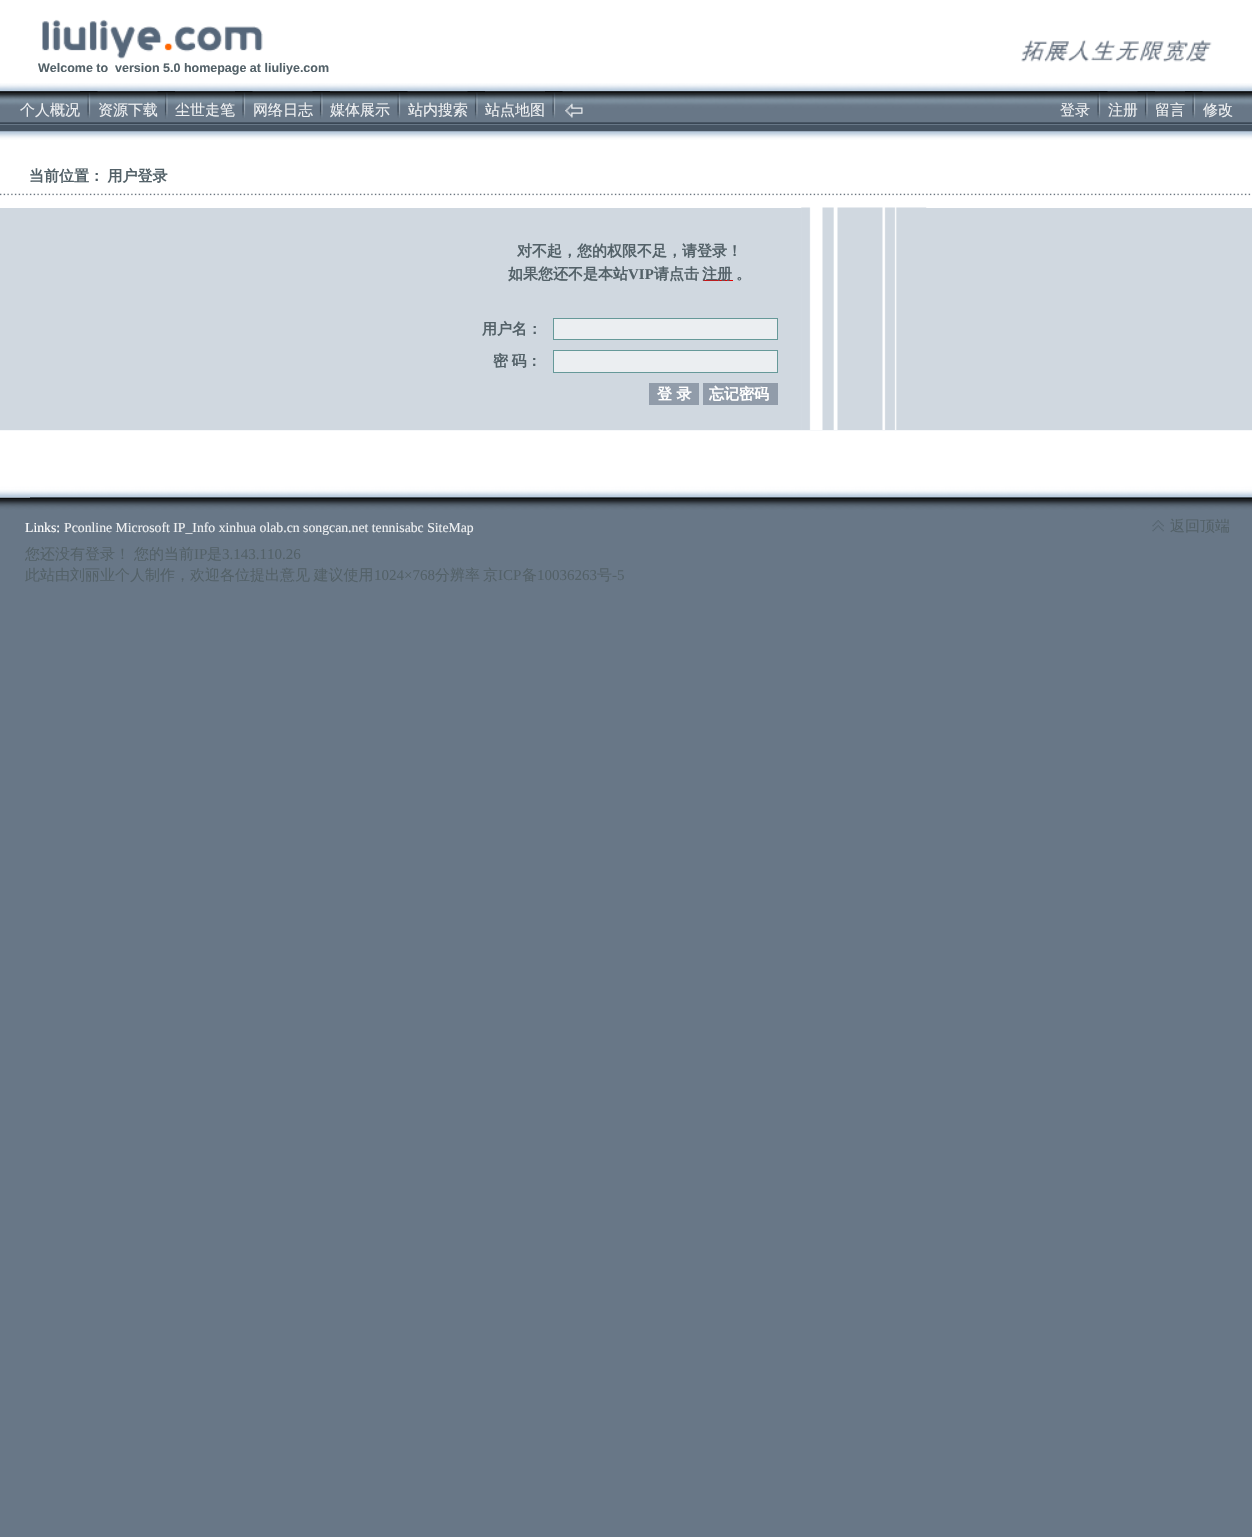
static SkFont makeFont(const char* family, int weight, float size, bool italic = false) {
  SkFontStyle style(weight, SkFontStyle::kNormal_Width,
    italic ? SkFontStyle::kItalic_Slant : SkFontStyle::kUpright_Slant);
  SkFont result(fontMgr->matchFamilyStyle(family, style), size);
  result.setSubpixel(true);
  return result;
}

static void text(SkCanvas* c, const char* s, float x, float y, const SkFont& font, SkColor color) {
  SkPaint ink(SkColor4f::FromColor(color));
  ink.setAntiAlias(true);
  c->drawString(s, x, y, font, ink);
}

static void spacedText(SkCanvas* c, const char* s, float x, float y, const SkFont& font, const SkPaint& ink, float letter, float word) {
  std::vector<SkGlyphID> glyphs(font.countText(s, strlen(s), SkTextEncoding::kUTF8));
  std::vector<float> xs(glyphs.size());
  font.textToGlyphs(s, strlen(s), SkTextEncoding::kUTF8, glyphs);
  font.getXPos(glyphs, xs, x);
  float extra = 0;
  for (size_t i = 0; i < glyphs.size(); i++) {
    xs[i] += extra;
    extra += letter + word * (glyphs[i] == font.unicharToGlyph(' '));
  }
  c->drawTextBlob(SkTextBlob::MakeFromPosHGlyphs(glyphs, xs, y, font), 0, 0, ink);
}

static void box(SkCanvas* c, float l, float t, float r, float b, SkColor color) {
  SkPaint ink(SkColor4f::FromColor(color));
  ink.setAntiAlias(true);
  c->drawRect(SkRect::MakeLTRB(l, t, r, b), ink);
}

static void picture(SkCanvas* c, const char* path, float l, float t, float r, float b) {
  auto image = SkImages::DeferredFromEncodedData(SkData::MakeFromFileName(path));
  c->drawImageRect(image, SkRect::MakeLTRB(l, t, r, b), SkSamplingOptions());
}

void draw(SkCanvas* c) {
  SkPaint paint;
  paint.setAntiAlias(true);
  c->clear(0xff687787);
  box(c, 0, 0, 1252, 83, 0xffffffff);
  picture(c, "img_01.png", 0, 83, 1252, 92);
  picture(c, "img_02.png", 1021, 39, 1212, 62);
  picture(c, "img_03.png", 42, 19, 263, 59);
  SkFont face1 = makeFont("Liberation Sans", 700, 12.5f);
  text(c, "Welcome to  version 5.0 homepage at liuliye.com", 38, 72, face1, 0xff536168);
  picture(c, "img_04.png", 0, 91, 1252, 124);
  SkFont face2 = makeFont("WenQuanYi Zen Hei", 500, 15);
  text(c, "个人概况", 20, 115, face2, 0xffeef0f2);
  picture(c, "img_05.png", 80, 91, 98, 118);
  text(c, "资源下载", 98, 115, face2, 0xffeef0f2);
  picture(c, "img_06.png", 157, 91, 175, 119);
  text(c, "尘世走笔", 175, 115, face2, 0xffeef0f2);
  picture(c, "img_07.png", 235, 91, 253, 118);
  picture(c, "img_08.png", 312, 91, 330, 119);
  text(c, "网络日志", 253, 115, face2, 0xffeef0f2);
  text(c, "媒体展示", 330, 115, face2, 0xffeef0f2);
  picture(c, "img_09.png", 390, 91, 408, 118);
  text(c, "站内搜索", 408, 115, face2, 0xffeef0f2);
  picture(c, "img_10.png", 467, 91, 485, 119);
  text(c, "站点地图", 485, 115, face2, 0xffeef0f2);
  picture(c, "img_11.png", 545, 91, 563, 118);
  picture(c, "img_12.png", 565, 103, 583, 118);
  text(c, "登录", 1060, 115, face2, 0xffeef0f2);
  picture(c, "img_09.png", 1090, 91, 1108, 118);
  text(c, "注册", 1108, 115, face2, 0xffeef0f2);
  picture(c, "img_13.png", 1137, 91, 1155, 119);
  text(c, "留言", 1155, 115, face2, 0xffeef0f2);
  picture(c, "img_07.png", 1185, 91, 1203, 118);
  text(c, "修改", 1203, 115, face2, 0xffeef0f2);
  box(c, 0, 125, 1252, 132, 0xff465463);
  picture(c, "img_14.png", 0, 131, 1252, 140);
  box(c, 0, 140, 1252, 208, 0xffffffff);
  SkFont face3 = makeFont("WenQuanYi Zen Hei", 700, 15);
  paint.setColor(0xff536168);
  spacedText(c, "当前位置： 用户登录", 29, 181, face3, paint, 0, -1);
  picture(c, "img_15.png", 0, 193, 1251, 196);
  box(c, 0, 208, 1252, 430, 0xffd0d8e0);
  text(c, "对不起，您的权限不足，请登录！", 517, 256, face3, 0xff536168);
  text(c, "如果您还不是本站", 508, 279, face3, 0xff536168);
  SkFont face4 = makeFont("Liberation Serif", 700, 15);
  text(c, "VIP", 628, 279, face4, 0xff536168);
  text(c, "请点击", 654, 279, face3, 0xff536168);
  box(c, 703, 280, 733, 281, 0xffe60000);
  text(c, "注册", 702, 279, face3, 0xff536168);
  text(c, "。", 736, 279, face3, 0xff536168);
  text(c, "用户名：", 482, 334, face3, 0xff536168);
  paint.setColor(0xffebeef1);
  c->drawRect(SkRect::MakeLTRB(553.5f, 318.5f, 777.5f, 339.5f), paint);
  paint.setStyle(SkPaint::kStroke_Style);
  paint.setStrokeWidth(1);
  paint.setColor(0xff669999);
  c->drawRect(SkRect::MakeLTRB(553.5f, 318.5f, 777.5f, 339.5f), paint);
  paint.setStyle(SkPaint::kFill_Style);
  paint.setColor(0xff536168);
  spacedText(c, "密 码：", 493, 366, face3, paint, 0, -1);
  paint.setColor(0xffebeef1);
  c->drawRect(SkRect::MakeLTRB(553.5f, 350.5f, 777.5f, 372.5f), paint);
  paint.setStyle(SkPaint::kStroke_Style);
  paint.setColor(0xff669999);
  c->drawRect(SkRect::MakeLTRB(553.5f, 350.5f, 777.5f, 372.5f), paint);
  box(c, 649, 383, 699, 405, 0xff919caa);
  text(c, "登 录", 657, 399, face3, 0xffffffff);
  box(c, 703, 383, 778, 405, 0xff919caa);
  text(c, "忘记密码", 709, 399, face3, 0xffffffff);
  picture(c, "img_16.png", 801, 207, 927, 430);
  picture(c, "img_17.png", 0, 430, 1252, 488);
  picture(c, "img_18.png", 0, 488, 1252, 498);
  picture(c, "img_19.png", 0, 497, 1252, 510);
  box(c, 0, 497, 30, 498, 0xff94a0ac);
  SkFont face5 = makeFont("Liberation Serif", 400, 13.75f);
  text(c, "Links:", 25, 532, face5, 0xffffffff);
  text(c, "Pconline Microsoft IP_Info xinhua olab.cn songcan.net tennisabc SiteMap", 64, 532, face5, 0xffeef0f2);
  picture(c, "img_20.png", 1152, 520, 1164, 532);
  text(c, "返回顶端", 1170, 531, face2, 0xff536168);
  text(c, "您还没有登录！", 25, 559, face2, 0xff536168);
  text(c, "您的当前", 134, 559, face2, 0xff536168);
  SkFont face6 = makeFont("Liberation Serif", 400, 15);
  text(c, "IP", 194, 559, face6, 0xff536168);
  text(c, "是", 207, 559, face2, 0xff536168);
  text(c, "3.143.110.26", 222, 559, face6, 0xff536168);
  paint.setStyle(SkPaint::kFill_Style);
  paint.setColor(0xff536168);
  spacedText(c, "此站由刘丽业个人制作，欢迎各位提出意见 建议使用", 25, 580, face2, paint, 0, -1);
  text(c, "1024×768", 374, 580, face6, 0xff536168);
  text(c, "分辨率", 435, 580, face2, 0xff536168);
  text(c, "京", 483, 580, face2, 0xff536168);
  text(c, "ICP", 498, 580, face6, 0xff536168);
  text(c, "备", 522, 580, face2, 0xff536168);
  text(c, "10036263", 537, 580, face6, 0xff536168);
  text(c, "号", 597, 580, face2, 0xff536168);
  text(c, "-5", 612, 580, face6, 0xff536168);
}
